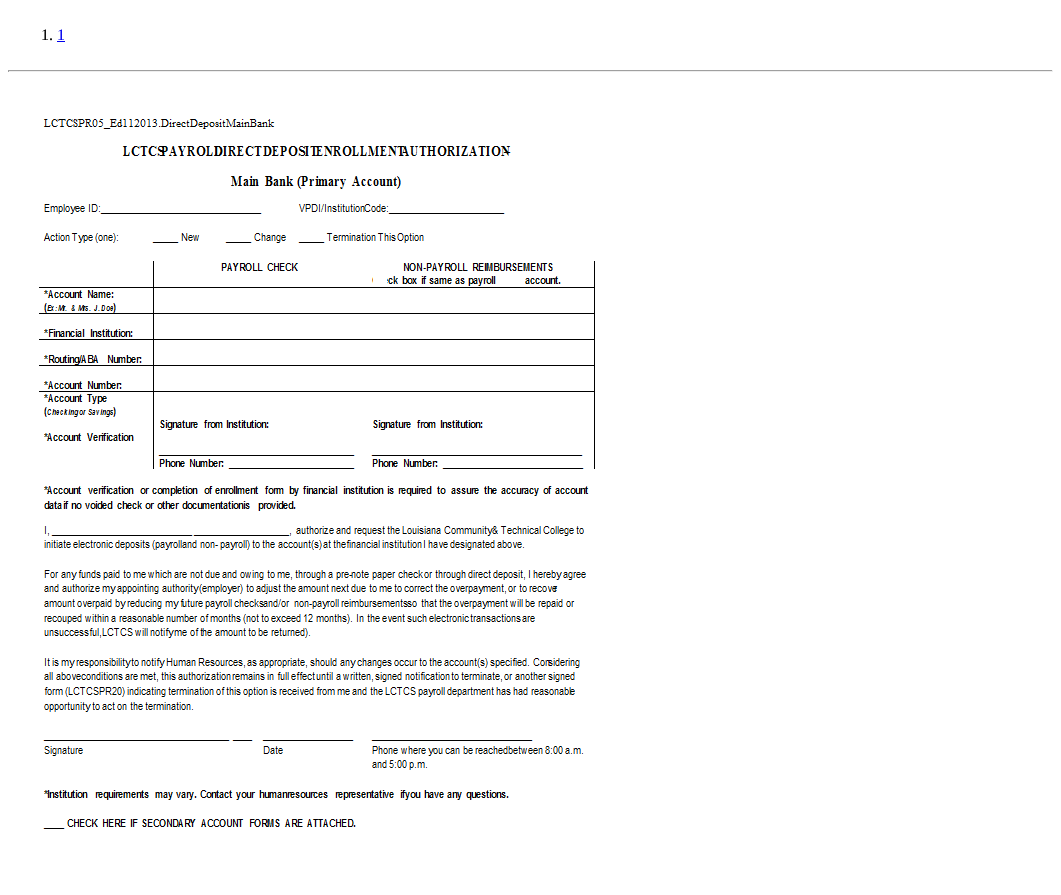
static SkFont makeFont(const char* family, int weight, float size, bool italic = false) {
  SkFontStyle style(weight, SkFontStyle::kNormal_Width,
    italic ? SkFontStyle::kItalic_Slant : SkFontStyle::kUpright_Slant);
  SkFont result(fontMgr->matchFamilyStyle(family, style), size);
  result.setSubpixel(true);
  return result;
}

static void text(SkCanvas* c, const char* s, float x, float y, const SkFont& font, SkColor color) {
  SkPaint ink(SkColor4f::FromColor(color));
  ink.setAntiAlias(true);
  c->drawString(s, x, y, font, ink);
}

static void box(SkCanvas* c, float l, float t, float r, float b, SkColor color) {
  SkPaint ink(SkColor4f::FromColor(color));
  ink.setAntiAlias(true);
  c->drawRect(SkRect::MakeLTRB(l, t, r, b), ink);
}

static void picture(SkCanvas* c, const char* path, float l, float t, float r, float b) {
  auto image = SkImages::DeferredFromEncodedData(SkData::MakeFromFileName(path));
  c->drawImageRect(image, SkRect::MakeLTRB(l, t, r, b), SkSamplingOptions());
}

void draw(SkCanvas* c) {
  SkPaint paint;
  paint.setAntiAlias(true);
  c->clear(0xffffffff);
  SkFont face1 = makeFont("Liberation Serif", 400, 16);
  text(c, "1.", 41, 40, face1, 0xff000000);
  text(c, "1", 57, 40, face1, 0xff0000ee);
  box(c, 57, 41, 65, 42, 0xff0000ee);
  box(c, 8, 70, 1053, 71, 0xff9f9f9f);
  box(c, 1052, 70, 1053, 72, 0xffeeeeee);
  box(c, 8, 71, 1053, 72, 0xffeeeeee);
  box(c, 8, 70, 9, 72, 0xff9f9f9f);
  picture(c, "img_01.png", 39, 119, 595, 829);
}
